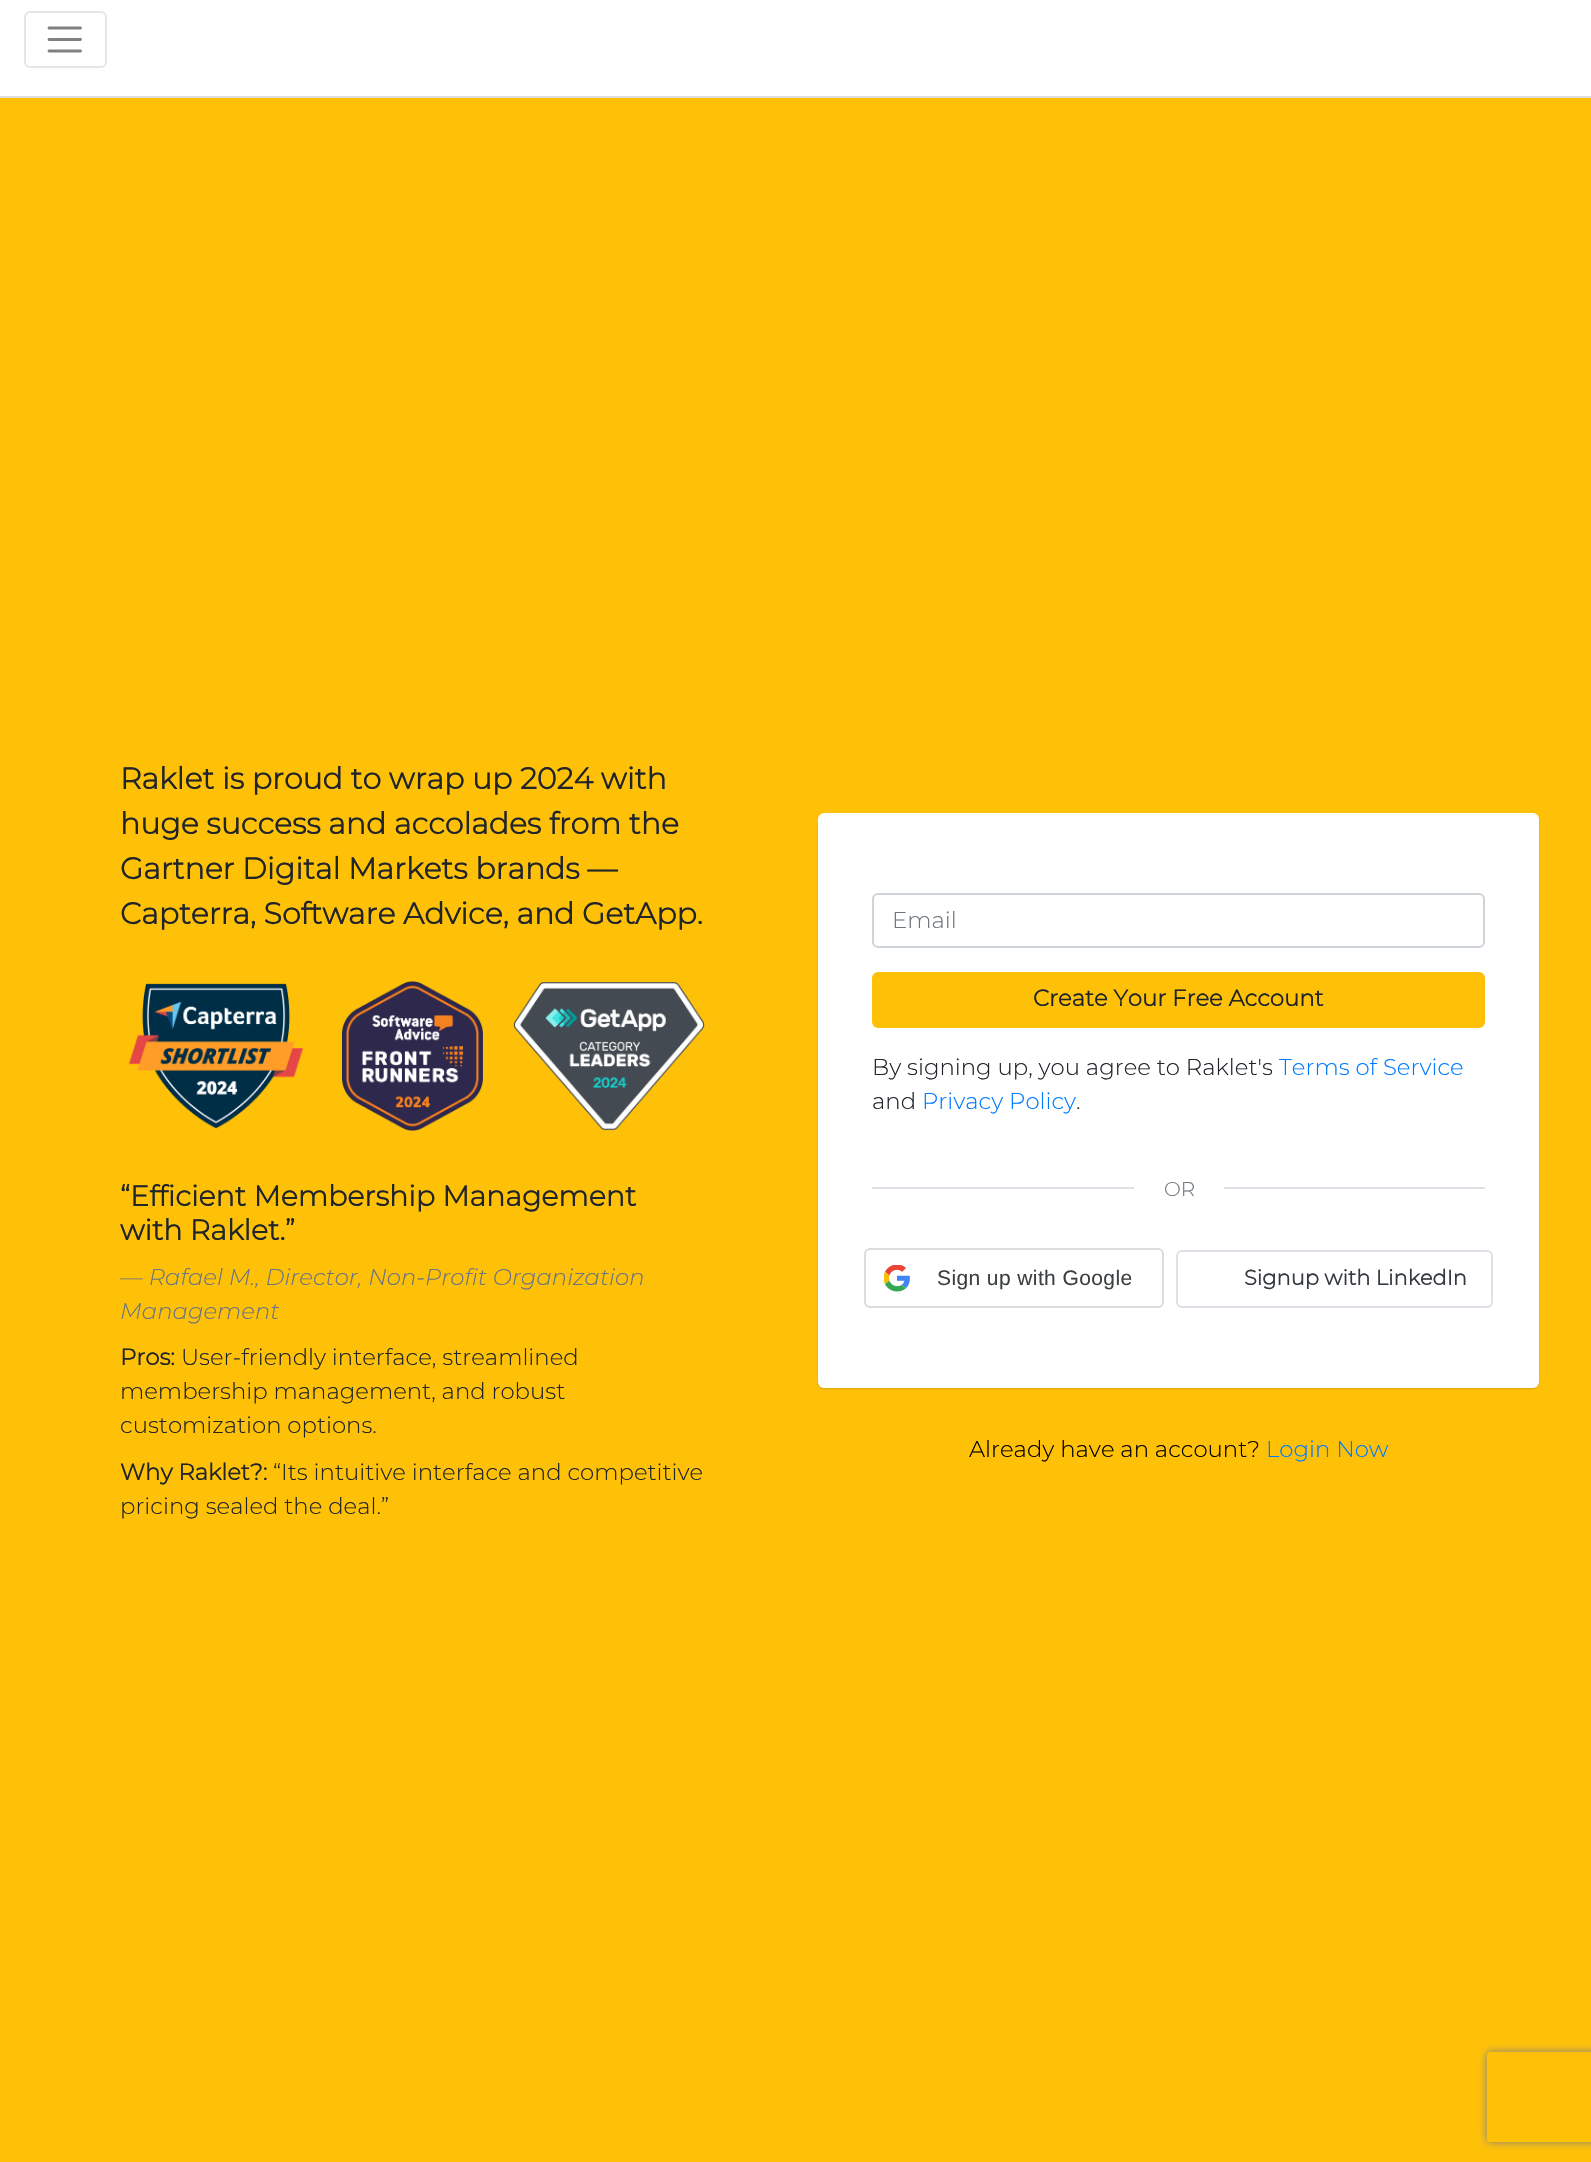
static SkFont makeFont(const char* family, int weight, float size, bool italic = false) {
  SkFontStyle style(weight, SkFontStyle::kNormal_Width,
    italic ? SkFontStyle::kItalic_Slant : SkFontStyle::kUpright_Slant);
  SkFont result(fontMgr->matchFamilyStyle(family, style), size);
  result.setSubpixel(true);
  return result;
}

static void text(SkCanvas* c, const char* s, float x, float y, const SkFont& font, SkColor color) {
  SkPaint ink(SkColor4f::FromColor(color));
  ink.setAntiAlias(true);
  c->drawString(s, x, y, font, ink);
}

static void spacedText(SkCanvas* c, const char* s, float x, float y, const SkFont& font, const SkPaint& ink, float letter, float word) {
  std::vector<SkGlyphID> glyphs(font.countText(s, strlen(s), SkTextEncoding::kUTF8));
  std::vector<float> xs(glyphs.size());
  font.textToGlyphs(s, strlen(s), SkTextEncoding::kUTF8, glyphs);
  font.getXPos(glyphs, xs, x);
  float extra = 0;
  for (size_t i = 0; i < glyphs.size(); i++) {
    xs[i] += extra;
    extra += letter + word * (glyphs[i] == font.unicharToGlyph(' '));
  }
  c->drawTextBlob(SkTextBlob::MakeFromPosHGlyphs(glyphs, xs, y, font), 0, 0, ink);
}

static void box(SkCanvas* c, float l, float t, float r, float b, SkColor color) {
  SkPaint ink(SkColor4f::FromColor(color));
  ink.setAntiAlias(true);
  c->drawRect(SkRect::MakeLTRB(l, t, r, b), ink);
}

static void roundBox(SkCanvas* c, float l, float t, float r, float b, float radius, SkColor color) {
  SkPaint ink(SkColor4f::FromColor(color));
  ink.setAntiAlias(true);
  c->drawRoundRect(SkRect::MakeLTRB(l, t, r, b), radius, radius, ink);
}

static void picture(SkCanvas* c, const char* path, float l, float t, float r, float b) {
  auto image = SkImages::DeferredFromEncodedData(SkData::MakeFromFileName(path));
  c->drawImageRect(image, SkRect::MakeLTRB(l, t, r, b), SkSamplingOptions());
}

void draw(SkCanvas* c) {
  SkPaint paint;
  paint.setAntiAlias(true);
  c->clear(0xffffc108);
  box(c, 0, 0, 1591, 96, 0xffffffff);
  box(c, 0, 96, 1591, 98, 0xffdddddd);
  paint.setStyle(SkPaint::kStroke_Style);
  paint.setStrokeWidth(2);
  paint.setColor(0xffe6e6e6);
  c->drawRoundRect(SkRect::MakeLTRB(25, 12, 106, 67), 5, 5, paint);
  paint.setStrokeWidth(2.8f);
  paint.setStrokeCap(SkPaint::kRound_Cap);
  paint.setColor(0xff808080);
  c->drawPath(SkPathBuilder().moveTo(49, 28).lineTo(80.5f, 28).moveTo(49, 39.5f).lineTo(80.5f, 39.5f).moveTo(49, 51).lineTo(80.5f, 51).detach(), paint);
  SkFont face1 = makeFont("Montserrat", 700, 30);
  text(c, "Raklet is proud to wrap up 2024 with", 120, 789, face1, 0xff212529);
  text(c, "huge success and accolades from the", 120, 834, face1, 0xff212529);
  text(c, "Gartner Digital Markets brands —", 120, 879, face1, 0xff212529);
  text(c, "Capterra, Software Advice, and GetApp.", 120, 924, face1, 0xff212529);
  picture(c, "img_01.png", 128, 983, 304, 1129);
  picture(c, "img_02.png", 342, 981, 483, 1131);
  picture(c, "img_03.png", 513, 982, 705, 1131);
  SkFont face2 = makeFont("Montserrat", 700, 28.5f);
  text(c, "“Efficient Membership Management", 120, 1206, face2, 0xff212529);
  text(c, "with Raklet.”", 120, 1240, face2, 0xff212529);
  SkFont face3 = makeFont("Montserrat", 300, 22.8f, true);
  text(c, "— Rafael M., Director, Non-Profit Organization", 120, 1285, face3, 0xff6c757d);
  text(c, "Management", 120, 1319, face3, 0xff6c757d);
  SkFont face4 = makeFont("Montserrat", 700, 22.8f);
  text(c, "Pros:", 120, 1365, face4, 0xff212529);
  SkFont face5 = makeFont("Montserrat", 300, 22.8f);
  text(c, "User-friendly interface, streamlined", 181, 1365, face5, 0xff212529);
  text(c, "membership management, and robust", 120, 1399, face5, 0xff212529);
  text(c, "customization options.", 120, 1433, face5, 0xff212529);
  text(c, "Why Raklet?:", 120, 1480, face4, 0xff212529);
  text(c, "“Its intuitive interface and competitive", 273, 1480, face5, 0xff212529);
  text(c, "pricing sealed the deal.”", 120, 1514, face5, 0xff212529);
  paint.setStyle(SkPaint::kFill_Style);
  paint.setColor(0x26000000);
  paint.setMaskFilter(SkMaskFilter::MakeBlur(kNormal_SkBlurStyle, 1));
  c->drawRoundRect(SkRect::MakeLTRB(818, 815, 1539, 1389), 6, 6, paint);
  paint.setMaskFilter(nullptr);
  roundBox(c, 818, 813, 1539, 1388, 6, 0xffffffff);
  paint.setStyle(SkPaint::kStroke_Style);
  paint.setStrokeWidth(2);
  paint.setStrokeCap(SkPaint::kButt_Cap);
  paint.setColor(0xffced4da);
  c->drawRoundRect(SkRect::MakeLTRB(873, 894, 1484, 947), 5, 5, paint);
  text(c, "Email", 892, 928, face5, 0xff6c757d);
  paint.setStyle(SkPaint::kFill_Style);
  paint.setColor(0xffffc107);
  c->drawRoundRect(SkRect::MakeLTRB(873, 973, 1484, 1027), 5, 5, paint);
  paint.setStyle(SkPaint::kStroke_Style);
  c->drawRoundRect(SkRect::MakeLTRB(873, 973, 1484, 1027), 5, 5, paint);
  text(c, "Create Your Free Account", 1033, 1006, face4, 0xff212529);
  text(c, "By signing up, you agree to Raklet's", 872, 1075, face5, 0xff212529);
  text(c, "Terms of Service", 1279, 1075, face5, 0xff007bff);
  text(c, "and", 872, 1109, face5, 0xff212529);
  text(c, "Privacy Policy", 922, 1109, face5, 0xff007bff);
  text(c, ".", 1076, 1109, face5, 0xff212529);
  box(c, 872, 1187, 1485, 1189, 0xffdee2e6);
  box(c, 1134, 1187, 1224, 1189, 0xffffffff);
  SkFont face6 = makeFont("Montserrat", 300, 20);
  text(c, "OR", 1164, 1196, face6, 0xff6c757d);
  paint.setColor(0xffdadce0);
  c->drawRoundRect(SkRect::MakeLTRB(865, 1249, 1163, 1307), 5, 5, paint);
  picture(c, "img_04.png", 884, 1265, 910, 1292);
  SkFont face7 = makeFont("Liberation Sans", 400, 21);
  paint.setStyle(SkPaint::kFill_Style);
  paint.setColor(0xff3c4043);
  spacedText(c, "Sign up with Google", 937, 1285, face7, paint, 0.4f, 0);
  paint.setStyle(SkPaint::kStroke_Style);
  paint.setColor(0xffdee2e6);
  c->drawRoundRect(SkRect::MakeLTRB(1177, 1251, 1492, 1307), 5, 5, paint);
  SkFont face8 = makeFont("Montserrat", 700, 21);
  text(c, "Signup with LinkedIn", 1244, 1285, face8, 0xff343a40);
  text(c, "Already have an account?", 969, 1457, face5, 0xff000000);
  text(c, "Login Now", 1266, 1457, face5, 0xff007bff);
  c->save();
  c->clipPath(SkPathBuilder(SkPathFillType::kEvenOdd).moveTo(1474, 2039).lineTo(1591, 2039).lineTo(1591, 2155).lineTo(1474, 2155).close().moveTo(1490, 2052).lineTo(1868, 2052).cubicTo(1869.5f, 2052, 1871, 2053.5f, 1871, 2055).lineTo(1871, 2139).cubicTo(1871, 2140.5f, 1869.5f, 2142, 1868, 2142).lineTo(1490, 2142).cubicTo(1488.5f, 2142, 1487, 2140.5f, 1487, 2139).lineTo(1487, 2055).cubicTo(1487, 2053.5f, 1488.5f, 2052, 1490, 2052).close().detach(), true);
  paint.setStyle(SkPaint::kFill_Style);
  paint.setColor(0xff808080);
  paint.setMaskFilter(SkMaskFilter::MakeBlur(kNormal_SkBlurStyle, 4));
  c->drawRoundRect(SkRect::MakeLTRB(1487, 2052, 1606, 2142), 3, 3, paint);
  paint.setMaskFilter(nullptr);
  c->restore();
}
